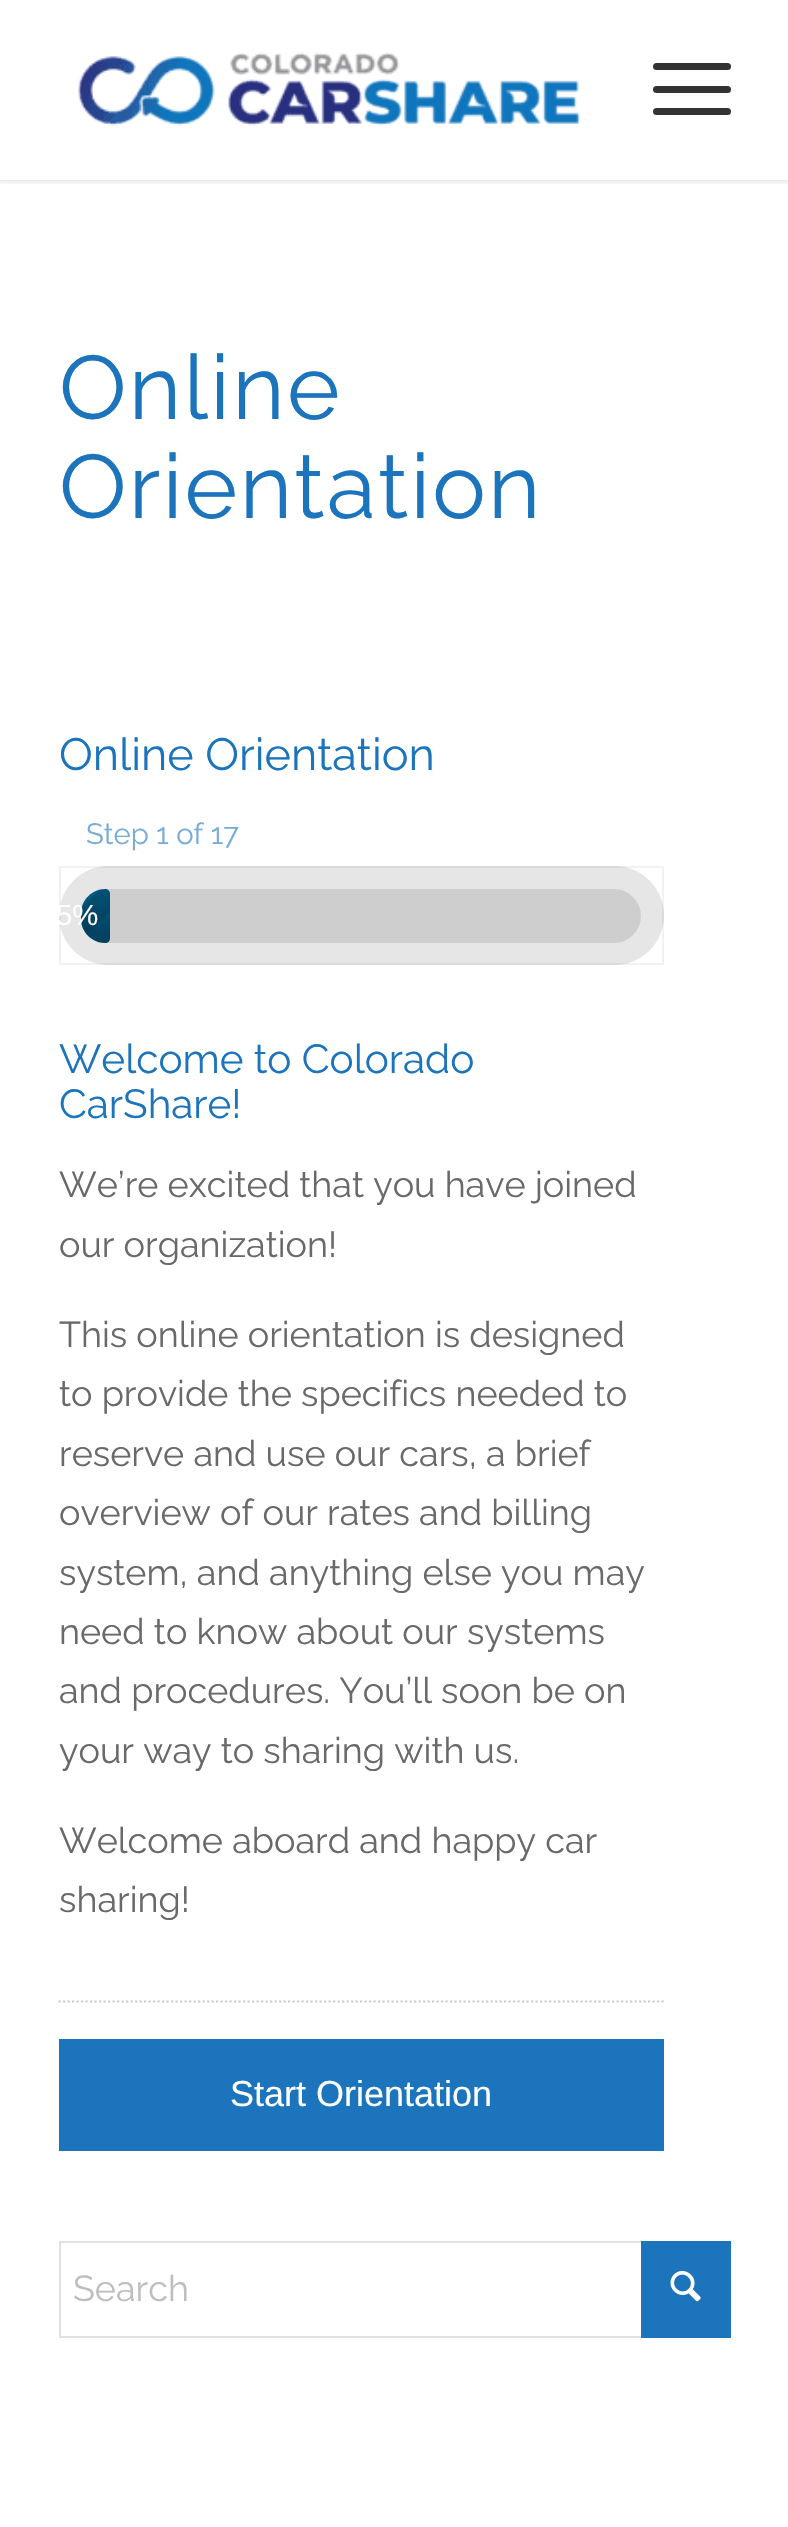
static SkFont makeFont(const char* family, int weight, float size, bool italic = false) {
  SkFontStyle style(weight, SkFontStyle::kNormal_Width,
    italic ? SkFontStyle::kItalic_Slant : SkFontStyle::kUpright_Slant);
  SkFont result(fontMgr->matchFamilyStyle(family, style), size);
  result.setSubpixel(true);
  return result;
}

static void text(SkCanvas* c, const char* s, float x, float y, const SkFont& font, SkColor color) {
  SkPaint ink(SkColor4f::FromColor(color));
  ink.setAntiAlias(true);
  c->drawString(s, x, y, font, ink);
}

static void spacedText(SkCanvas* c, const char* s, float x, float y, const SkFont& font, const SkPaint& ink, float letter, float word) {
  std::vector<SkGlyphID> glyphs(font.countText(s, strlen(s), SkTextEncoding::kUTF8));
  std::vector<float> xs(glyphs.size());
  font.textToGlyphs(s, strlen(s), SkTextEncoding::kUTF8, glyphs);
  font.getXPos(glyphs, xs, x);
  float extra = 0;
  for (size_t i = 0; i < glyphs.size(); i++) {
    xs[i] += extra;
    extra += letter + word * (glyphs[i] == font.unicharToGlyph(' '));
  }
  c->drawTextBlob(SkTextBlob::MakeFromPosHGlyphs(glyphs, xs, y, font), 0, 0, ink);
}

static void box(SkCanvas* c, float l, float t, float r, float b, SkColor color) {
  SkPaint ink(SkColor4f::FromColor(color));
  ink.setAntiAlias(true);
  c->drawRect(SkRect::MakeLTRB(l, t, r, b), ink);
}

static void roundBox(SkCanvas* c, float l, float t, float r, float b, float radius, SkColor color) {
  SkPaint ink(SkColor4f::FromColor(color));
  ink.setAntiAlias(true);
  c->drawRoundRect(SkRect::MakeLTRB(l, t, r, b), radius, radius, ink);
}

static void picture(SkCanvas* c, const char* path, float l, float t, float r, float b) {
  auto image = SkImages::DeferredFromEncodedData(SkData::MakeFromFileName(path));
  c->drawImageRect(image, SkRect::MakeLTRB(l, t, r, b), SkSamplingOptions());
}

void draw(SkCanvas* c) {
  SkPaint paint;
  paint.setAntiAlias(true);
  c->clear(0xffffffff);
  c->save();
  c->clipRect(SkRect::MakeLTRB(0, 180, 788, 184));
  paint.setColor(0x1a000000);
  paint.setMaskFilter(SkMaskFilter::MakeBlur(kNormal_SkBlurStyle, 2));
  c->drawRect(SkRect::MakeLTRB(-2, -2, 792, 182), paint);
  paint.setMaskFilter(nullptr);
  c->restore();
  picture(c, "img_01.png", 78, 52, 581, 126);
  roundBox(c, 653, 86, 731, 93, 3.5f, 0xff333333);
  roundBox(c, 653, 63, 731, 70, 3.5f, 0xff333333);
  roundBox(c, 653, 108, 731, 115, 3.5f, 0xff333333);
  SkFont face1 = makeFont("Raleway", 100, 90);
  paint.setColor(0xff1c74bc);
  spacedText(c, "Online", 59, 419, face1, paint, 2.25f, 0);
  spacedText(c, "Orientation", 59, 518, face1, paint, 2.25f, 0);
  SkFont face2 = makeFont("Raleway", 100, 45);
  text(c, "Online Orientation", 59, 770, face2, 0xff1c74bc);
  SkFont face3 = makeFont("Raleway", 100, 29.25f);
  text(c, "Step 1 of 17", 86, 844, face3, 0xff77acd7);
  roundBox(c, 59, 866, 664, 965, 49.5f, 0xffe6e6e6);
  paint.setStyle(SkPaint::kStroke_Style);
  paint.setStrokeWidth(2);
  paint.setColor(0x0d000000);
  c->drawRect(SkRect::MakeLTRB(60, 867, 663, 964), paint);
  paint.setStyle(SkPaint::kFill_Style);
  paint.setColor(0xff036493);
  c->drawPath(SkPathBuilder().moveTo(105, 889).cubicTo(108, 889, 110, 891, 110, 894).lineTo(110, 938).cubicTo(110, 941, 108, 943, 105, 943).cubicTo(92, 943, 81, 932, 81, 919).lineTo(81, 913).cubicTo(81, 900, 92, 889, 105, 889).close().detach(), paint);
  {
    const SkColor colors[] = {0x00000000, 0x4d000000};
    const float stops[] = {0, 1};
    const SkPoint ends[] = {{96, 889}, {96, 943}};
    paint.setShader(SkGradientShader::MakeLinear(ends, colors, stops, 2, SkTileMode::kClamp));
    paint.setAlpha(255);
  }
  c->drawPath(SkPathBuilder().moveTo(105, 889).cubicTo(108, 889, 110, 891, 110, 894).lineTo(110, 938).cubicTo(110, 941, 108, 943, 105, 943).cubicTo(92, 943, 81, 932, 81, 919).lineTo(81, 913).cubicTo(81, 900, 92, 889, 105, 889).close().detach(), paint);
  {
    const SkColor colors[] = {0x00000000, 0x00000000, 0x1a000000, 0x1a000000, 0x00000000, 0x00000000, 0x1a000000, 0x1a000000};
    const float stops[] = {0, 0.25f, 0.25f, 0.5f, 0.5f, 0.75f, 0.75f, 1};
    const SkPoint ends[] = {{116, 937}, {53, 873}};
    paint.setShader(SkGradientShader::MakeLinear(ends, colors, stops, 8, SkTileMode::kClamp));
    paint.setAlpha(255);
  }
  c->drawPath(SkPathBuilder().moveTo(105, 889).cubicTo(108, 889, 110, 891, 110, 894).lineTo(110, 938).cubicTo(110, 941, 108, 943, 105, 943).cubicTo(92, 943, 81, 932, 81, 919).lineTo(81, 913).cubicTo(81, 900, 92, 889, 105, 889).close().detach(), paint);
  roundBox(c, 81, 889, 641, 943, 27, 0x1a000000);
  SkFont face4 = makeFont("Liberation Sans", 400, 29.25f);
  text(c, "5%", 56, 925, face4, 0xffffffff);
  SkFont face5 = makeFont("Raleway", 100, 40.5f);
  text(c, "Welcome to Colorado", 59, 1073, face5, 0xff1c74bc);
  text(c, "CarShare!", 59, 1118, face5, 0xff1c74bc);
  SkFont face6 = makeFont("Raleway", 100, 36);
  text(c, "We’re excited that you have joined", 59, 1197, face6, 0xff696969);
  text(c, "our organization!", 59, 1257, face6, 0xff696969);
  text(c, "This online orientation is designed", 59, 1347, face6, 0xff696969);
  text(c, "to provide the specifics needed to", 59, 1406, face6, 0xff696969);
  text(c, "reserve and use our cars, a brief", 59, 1466, face6, 0xff696969);
  text(c, "overview of our rates and billing", 59, 1525, face6, 0xff696969);
  text(c, "system, and anything else you may", 59, 1585, face6, 0xff696969);
  text(c, "need to know about our systems", 59, 1644, face6, 0xff696969);
  text(c, "and procedures. You’ll soon be on", 59, 1703, face6, 0xff696969);
  text(c, "your way to sharing with us.", 59, 1763, face6, 0xff696969);
  text(c, "Welcome aboard and happy car", 59, 1853, face6, 0xff696969);
  text(c, "sharing!", 59, 1912, face6, 0xff696969);
  paint.setStyle(SkPaint::kStroke_Style);
  paint.setStrokeWidth(2.2f);
  paint.setShader(nullptr);
  paint.setColor(0xffcccccc);
  paint.setPathEffect(SkDashPathEffect::Make({{2.25f, 2.25f}}, 0));
  c->drawPath(SkPathBuilder().moveTo(58.5f, 2001.5f).lineTo(664, 2001.5f).detach(), paint);
  paint.setPathEffect(nullptr);
  box(c, 59, 2039, 664, 2151, 0xff1c74bc);
  SkFont face7 = makeFont("Liberation Sans", 400, 36);
  text(c, "Start Orientation", 230, 2106, face7, 0xffffffff);
  paint.setStrokeWidth(2);
  paint.setColor(0xffe1e1e1);
  c->drawRect(SkRect::MakeLTRB(60, 2242, 730, 2337), paint);
  text(c, "Search", 73, 2301, face6, 0xffbebebe);
  box(c, 641, 2241, 731, 2338, 0xff1c74bc);
  picture(c, "img_02.png", 670, 2271, 701, 2302);
}
